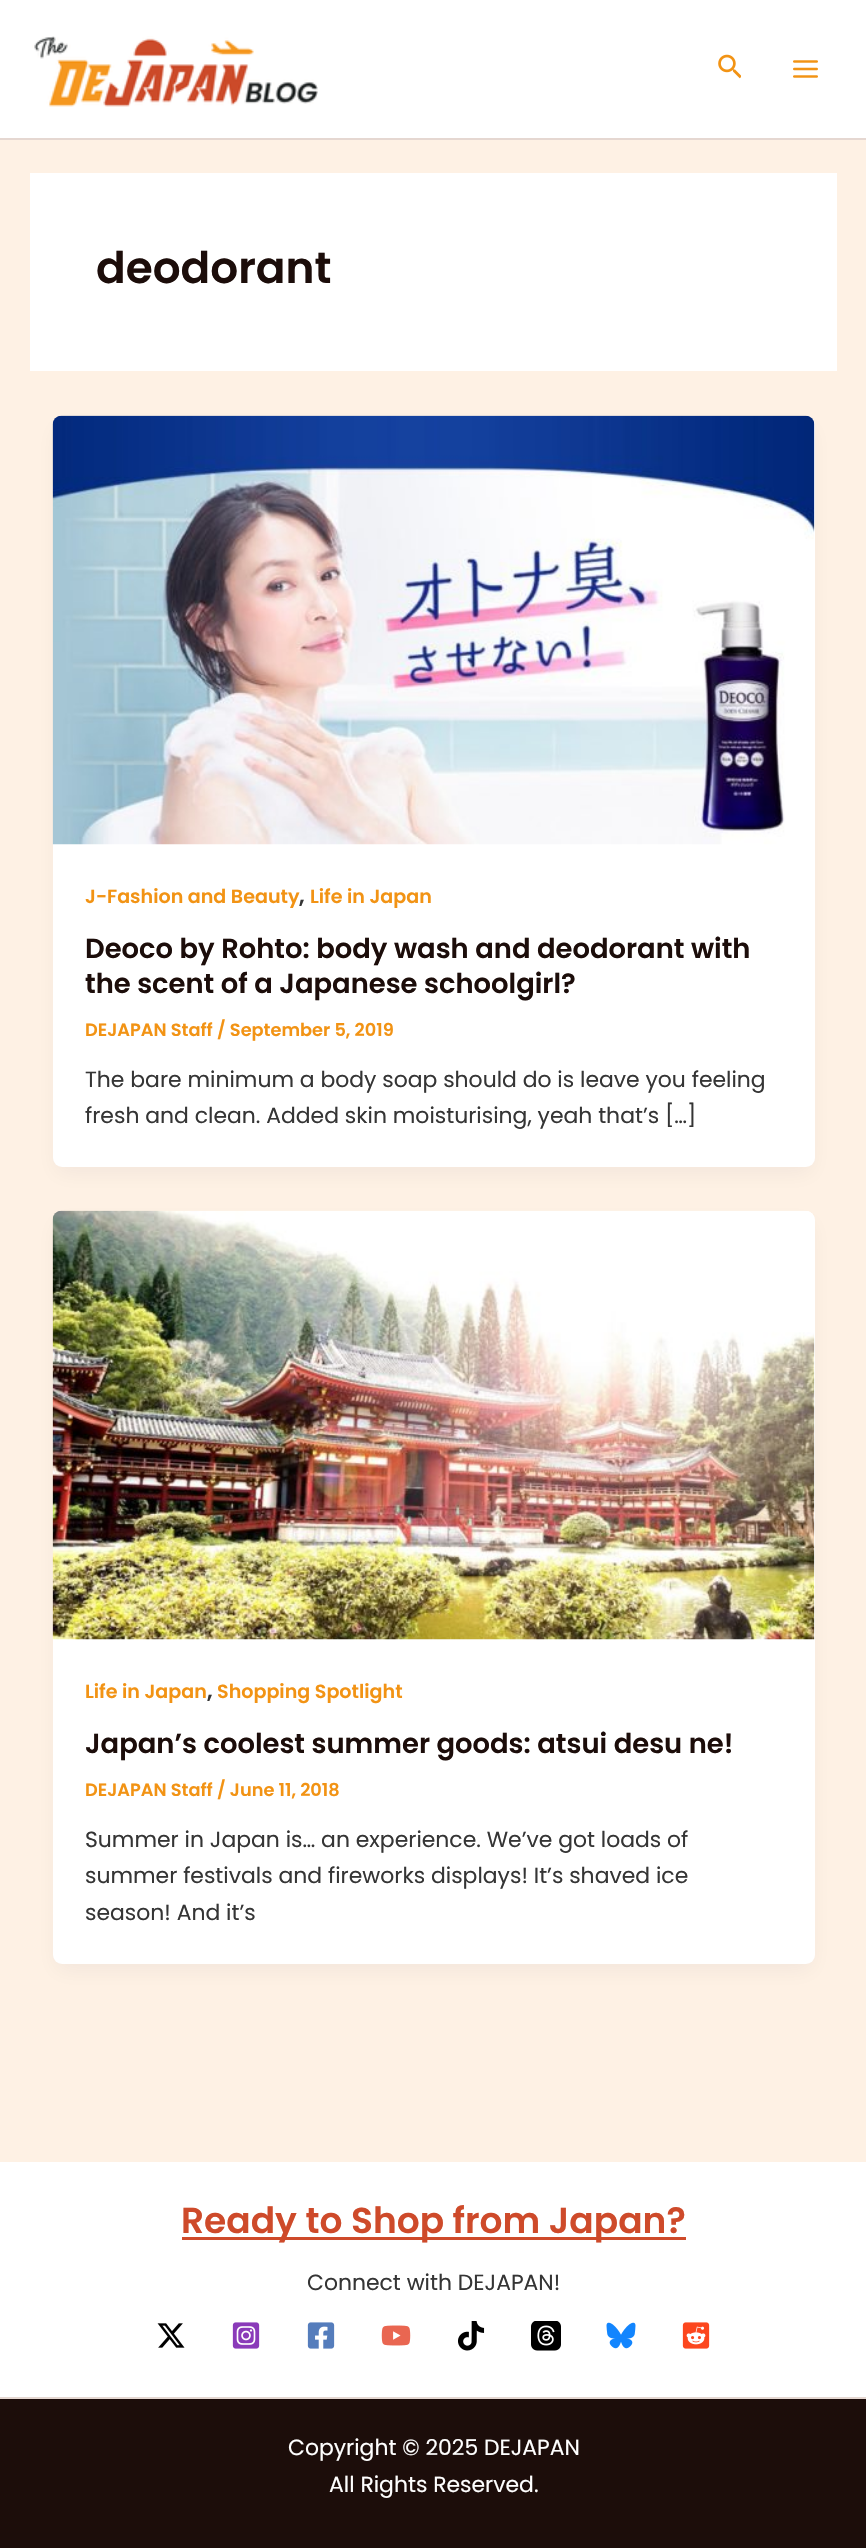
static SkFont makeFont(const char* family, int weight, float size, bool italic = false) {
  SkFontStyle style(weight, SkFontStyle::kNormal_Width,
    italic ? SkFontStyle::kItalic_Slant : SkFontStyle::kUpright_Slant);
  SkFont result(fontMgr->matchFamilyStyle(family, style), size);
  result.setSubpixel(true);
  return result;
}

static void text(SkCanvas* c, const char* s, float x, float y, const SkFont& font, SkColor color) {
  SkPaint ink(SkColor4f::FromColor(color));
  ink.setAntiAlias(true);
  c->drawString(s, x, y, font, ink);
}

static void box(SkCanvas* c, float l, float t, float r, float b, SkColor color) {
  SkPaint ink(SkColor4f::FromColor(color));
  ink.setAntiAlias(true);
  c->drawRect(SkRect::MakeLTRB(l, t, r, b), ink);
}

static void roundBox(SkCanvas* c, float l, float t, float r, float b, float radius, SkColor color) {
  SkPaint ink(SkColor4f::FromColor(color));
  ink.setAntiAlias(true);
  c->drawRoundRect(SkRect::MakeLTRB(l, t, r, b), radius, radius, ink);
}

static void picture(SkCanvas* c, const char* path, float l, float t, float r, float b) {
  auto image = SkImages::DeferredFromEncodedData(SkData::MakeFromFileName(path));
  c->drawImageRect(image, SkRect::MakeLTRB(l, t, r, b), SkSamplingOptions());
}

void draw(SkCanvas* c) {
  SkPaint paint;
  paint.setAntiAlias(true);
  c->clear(0xfffef1e4);
  box(c, 0, 0, 866, 138, 0xffffffff);
  box(c, 0, 138, 866, 140, 0xffe5d7d1);
  picture(c, "img_01.png", 32, 36, 318, 107);
  picture(c, "img_02.png", 718, 54, 741, 79);
  picture(c, "img_03.png", 793, 60, 818, 78);
  box(c, 30, 173, 837, 371, 0xffffffff);
  SkFont face1 = makeFont("Poppins", 600, 43.75f);
  text(c, "deodorant", 96, 283, face1, 0xff1c0d0a);
  paint.setColor(0x0d101828);
  paint.setMaskFilter(SkMaskFilter::MakeBlur(kNormal_SkBlurStyle, 11));
  c->drawRoundRect(SkRect::MakeLTRB(56, 428, 812, 1173), 6, 6, paint);
  paint.setMaskFilter(nullptr);
  roundBox(c, 53, 416, 815, 1167, 9, 0xffffffff);
  picture(c, "img_04.png", 52, 415, 815, 845);
  SkFont face2 = makeFont("Poppins", 600, 19.1f);
  text(c, "J-Fashion and Beauty", 85, 903, face2, 0xfff29314);
  SkFont face3 = makeFont("Poppins", 600, 21.9f);
  text(c, ",", 299, 903, face3, 0xff353535);
  text(c, "Life in Japan", 310, 903, face2, 0xfff29314);
  SkFont face4 = makeFont("Poppins", 600, 27.4f);
  text(c, "Deoco by Rohto: body wash and deodorant with", 85, 958, face4, 0xff1c0d0a);
  text(c, "the scent of a Japanese schoolgirl?", 85, 993, face4, 0xff1c0d0a);
  SkFont face5 = makeFont("Poppins", 600, 17.75f);
  text(c, "DEJAPAN Staff / September 5, 2019", 85, 1036, face5, 0xfff29314);
  SkFont face6 = makeFont("Poppins", 400, 21.9f);
  text(c, "The bare minimum a body soap should do is leave you feeling", 85, 1087, face6, 0xff353535);
  text(c, "fresh and clean. Added skin moisturising, yeah that’s […]", 85, 1123, face6, 0xff353535);
  paint.setMaskFilter(SkMaskFilter::MakeBlur(kNormal_SkBlurStyle, 11));
  c->drawRoundRect(SkRect::MakeLTRB(56, 1223, 812, 1970), 6, 6, paint);
  paint.setMaskFilter(nullptr);
  roundBox(c, 53, 1211, 815, 1964, 9, 0xffffffff);
  picture(c, "img_05.png", 52, 1210, 815, 1640);
  text(c, "Life in Japan", 85, 1698, face2, 0xfff29314);
  text(c, ",", 207, 1698, face3, 0xff353535);
  text(c, "Shopping Spotlight", 217, 1698, face2, 0xfff29314);
  text(c, "Japan’s coolest summer goods: atsui desu ne!", 85, 1753, face4, 0xff1c0d0a);
  text(c, "DEJAPAN Staff / June 11, 2018", 85, 1796, face5, 0xfff29314);
  text(c, "Summer in Japan is… an experience. We’ve got loads of", 85, 1847, face6, 0xff353535);
  text(c, "summer festivals and fireworks displays! It’s shaved ice", 85, 1883, face6, 0xff353535);
  text(c, "season! And it’s", 85, 1920, face6, 0xff353535);
  box(c, 0, 2162, 866, 2397, 0xffffffff);
  box(c, 182, 2237, 686, 2240, 0xffce4a2a);
  SkFont face7 = makeFont("Poppins", 600, 36);
  text(c, "Ready to Shop from Japan?", 181, 2233, face7, 0xffce4a2a);
  text(c, "Connect with DEJAPAN!", 307, 2290, face6, 0xff353535);
  picture(c, "img_06.png", 157, 2323, 185, 2348);
  picture(c, "img_07.png", 232, 2322, 260, 2349);
  picture(c, "img_08.png", 307, 2322, 335, 2349);
  picture(c, "img_09.png", 381, 2325, 411, 2346);
  picture(c, "img_10.png", 458, 2321, 485, 2351);
  picture(c, "img_11.png", 531, 2321, 561, 2351);
  picture(c, "img_12.png", 606, 2322, 636, 2349);
  picture(c, "img_13.png", 682, 2322, 710, 2349);
  box(c, 0, 2399, 866, 2548, 0xff1c0d0a);
  box(c, 0, 2397, 866, 2399, 0xffe5d7d1);
  text(c, "Copyright © 2025 DEJAPAN", 288, 2455, face6, 0xffffffff);
  text(c, "All Rights Reserved.", 329, 2492, face6, 0xffffffff);
}
